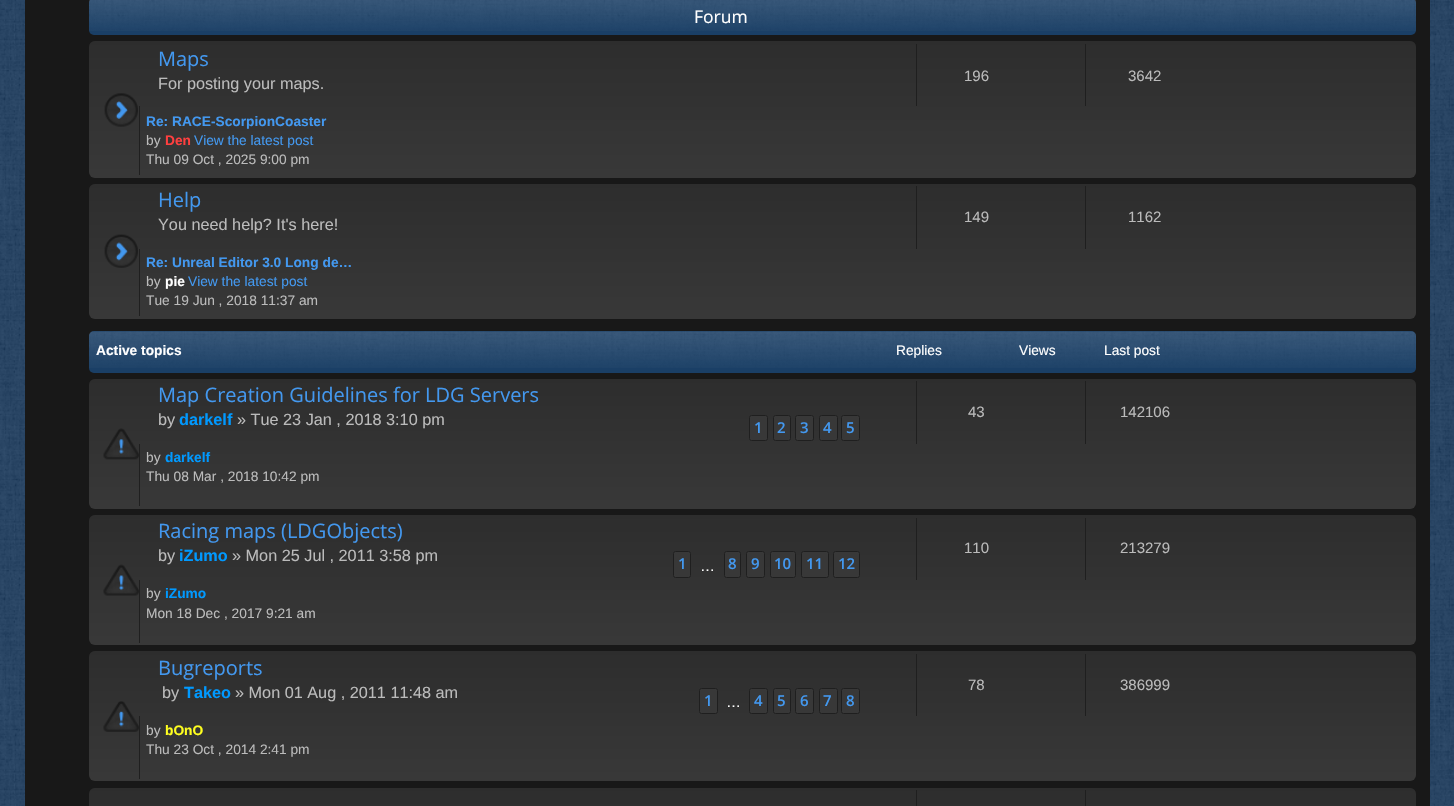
static SkFont makeFont(const char* family, int weight, float size, bool italic = false) {
  SkFontStyle style(weight, SkFontStyle::kNormal_Width,
    italic ? SkFontStyle::kItalic_Slant : SkFontStyle::kUpright_Slant);
  SkFont result(fontMgr->matchFamilyStyle(family, style), size);
  result.setSubpixel(true);
  return result;
}

static void text(SkCanvas* c, const char* s, float x, float y, const SkFont& font, SkColor color) {
  SkPaint ink(SkColor4f::FromColor(color));
  ink.setAntiAlias(true);
  c->drawString(s, x, y, font, ink);
}

static void box(SkCanvas* c, float l, float t, float r, float b, SkColor color) {
  SkPaint ink(SkColor4f::FromColor(color));
  ink.setAntiAlias(true);
  c->drawRect(SkRect::MakeLTRB(l, t, r, b), ink);
}

static void roundBox(SkCanvas* c, float l, float t, float r, float b, float radius, SkColor color) {
  SkPaint ink(SkColor4f::FromColor(color));
  ink.setAntiAlias(true);
  c->drawRoundRect(SkRect::MakeLTRB(l, t, r, b), radius, radius, ink);
}

static void picture(SkCanvas* c, const char* path, float l, float t, float r, float b) {
  auto image = SkImages::DeferredFromEncodedData(SkData::MakeFromFileName(path));
  c->drawImageRect(image, SkRect::MakeLTRB(l, t, r, b), SkSamplingOptions());
}

void draw(SkCanvas* c) {
  SkPaint paint;
  paint.setAntiAlias(true);
  c->clear(0xff1a3a5c);
  picture(c, "img_01.png", 0, 0, 1454, 806);
  box(c, 25, 0, 1430, 806, 0xff181818);
  roundBox(c, 89, -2, 1416, 35, 5, 0xff1a3f66);
  picture(c, "img_02.png", 89, 0, 1416, 31);
  SkFont face1 = makeFont("Open Sans", 400, 17.5f);
  text(c, "Forum", 694, 23, face1, 0xffffffff);
  roundBox(c, 89, 41, 1416, 178, 6, 0xff383838);
  {
    const SkColor colors[] = {0x33000000, 0x00000000};
    const float stops[] = {0, 1};
    const SkPoint ends[] = {{753, 41}, {753, 178}};
    paint.setShader(SkGradientShader::MakeLinear(ends, colors, stops, 2, SkTileMode::kClamp));
    paint.setAlpha(255);
  }
  c->drawRoundRect(SkRect::MakeLTRB(89, 41, 1416, 178), 6, 6, paint);
  picture(c, "img_03.png", 104, 93, 138, 127);
  SkFont face2 = makeFont("Open Sans", 400, 20);
  text(c, "Maps", 158, 66, face2, 0xff4398ef);
  SkFont face3 = makeFont("Liberation Sans", 400, 16.25f);
  text(c, "For posting your maps.", 158, 89, face3, 0xffbbbbbb);
  box(c, 916, 44, 917, 106, 0xff1f1f1f);
  SkFont face4 = makeFont("Liberation Sans", 400, 15);
  text(c, "196", 964, 81, face4, 0xffbbbbbb);
  box(c, 1085, 44, 1086, 106, 0xff1f1f1f);
  text(c, "3642", 1128, 81, face4, 0xffbbbbbb);
  box(c, 139, 106, 140, 175, 0xff1f1f1f);
  SkFont face5 = makeFont("Liberation Sans", 700, 13.75f);
  text(c, "Re: RACE-ScorpionCoaster", 146, 126, face5, 0xff4398ef);
  SkFont face6 = makeFont("Liberation Sans", 400, 13.75f);
  text(c, "by", 146, 145, face6, 0xffbbbbbb);
  text(c, "Den", 165, 145, face5, 0xffff3f3f);
  text(c, "View the latest post", 194, 145, face6, 0xff4398ef);
  text(c, "Thu 09 Oct , 2025 9:00 pm", 146, 164, face6, 0xffbbbbbb);
  roundBox(c, 89, 184, 1416, 319, 6, 0xff383838);
  {
    const SkColor colors[] = {0x33000000, 0x00000000};
    const float stops[] = {0, 1};
    const SkPoint ends[] = {{753, 184}, {753, 319}};
    paint.setShader(SkGradientShader::MakeLinear(ends, colors, stops, 2, SkTileMode::kClamp));
    paint.setAlpha(255);
  }
  c->drawRoundRect(SkRect::MakeLTRB(89, 184, 1416, 319), 6, 6, paint);
  picture(c, "img_04.png", 104, 234, 138, 268);
  text(c, "Help", 158, 207, face2, 0xff4398ef);
  text(c, "You need help? It's here!", 158, 230, face3, 0xffbbbbbb);
  box(c, 916, 186, 917, 249, 0xff1f1f1f);
  text(c, "149", 964, 222, face4, 0xffbbbbbb);
  box(c, 1085, 186, 1086, 249, 0xff1f1f1f);
  text(c, "1162", 1128, 222, face4, 0xffbbbbbb);
  box(c, 139, 249, 140, 316, 0xff1f1f1f);
  text(c, "Re: Unreal Editor 3.0 Long de…", 146, 267, face5, 0xff4398ef);
  text(c, "by", 146, 286, face6, 0xffbbbbbb);
  text(c, "pie", 165, 286, face5, 0xffffffff);
  text(c, "View the latest post", 188, 286, face6, 0xff4398ef);
  text(c, "Tue 19 Jun , 2018 11:37 am", 146, 305, face6, 0xffbbbbbb);
  roundBox(c, 89, 331, 1416, 373, 5, 0xff1a3f66);
  picture(c, "img_05.png", 89, 331, 1416, 368);
  text(c, "Active topics", 96, 355, face5, 0xffffffff);
  text(c, "Replies", 896, 355, face6, 0xffffffff);
  text(c, "Views", 1019, 355, face6, 0xffffffff);
  text(c, "Last post", 1104, 355, face6, 0xffffffff);
  roundBox(c, 89, 379, 1416, 509, 6, 0xff383838);
  {
    const SkColor colors[] = {0x33000000, 0x00000000};
    const float stops[] = {0, 1};
    const SkPoint ends[] = {{753, 379}, {753, 509}};
    paint.setShader(SkGradientShader::MakeLinear(ends, colors, stops, 2, SkTileMode::kClamp));
    paint.setAlpha(255);
  }
  c->drawRoundRect(SkRect::MakeLTRB(89, 379, 1416, 509), 6, 6, paint);
  picture(c, "img_06.png", 103, 428, 139, 460);
  text(c, "Map Creation Guidelines for LDG Servers", 158, 402, face2, 0xff4398ef);
  text(c, "by", 158, 425, face3, 0xffbbbbbb);
  SkFont face7 = makeFont("Liberation Sans", 700, 16.25f);
  text(c, "darkelf", 179, 425, face7, 0xff0099ff);
  text(c, "» Tue 23 Jan , 2018 3:10 pm", 237, 425, face3, 0xffbbbbbb);
  paint.setShader(nullptr);
  paint.setColor(0xff383838);
  c->drawRoundRect(SkRect::MakeLTRB(749.5f, 415.5f, 767.5f, 440.5f), 2, 2, paint);
  paint.setStyle(SkPaint::kStroke_Style);
  paint.setStrokeWidth(1);
  paint.setColor(0xff1f1f1f);
  c->drawRoundRect(SkRect::MakeLTRB(749.5f, 415.5f, 767.5f, 440.5f), 2, 2, paint);
  SkFont face8 = makeFont("Open Sans", 600, 15);
  text(c, "1", 754, 433, face8, 0xff4398ef);
  paint.setStyle(SkPaint::kFill_Style);
  paint.setColor(0xff383838);
  c->drawRoundRect(SkRect::MakeLTRB(773.5f, 415.5f, 790.5f, 440.5f), 2, 2, paint);
  paint.setStyle(SkPaint::kStroke_Style);
  paint.setColor(0xff1f1f1f);
  c->drawRoundRect(SkRect::MakeLTRB(773.5f, 415.5f, 790.5f, 440.5f), 2, 2, paint);
  text(c, "2", 777, 433, face8, 0xff4398ef);
  paint.setStyle(SkPaint::kFill_Style);
  paint.setColor(0xff383838);
  c->drawRoundRect(SkRect::MakeLTRB(795.5f, 415.5f, 813.5f, 440.5f), 2, 2, paint);
  paint.setStyle(SkPaint::kStroke_Style);
  paint.setColor(0xff1f1f1f);
  c->drawRoundRect(SkRect::MakeLTRB(795.5f, 415.5f, 813.5f, 440.5f), 2, 2, paint);
  text(c, "3", 800, 433, face8, 0xff4398ef);
  paint.setStyle(SkPaint::kFill_Style);
  paint.setColor(0xff383838);
  c->drawRoundRect(SkRect::MakeLTRB(819.5f, 415.5f, 837.5f, 440.5f), 2, 2, paint);
  paint.setStyle(SkPaint::kStroke_Style);
  paint.setColor(0xff1f1f1f);
  c->drawRoundRect(SkRect::MakeLTRB(819.5f, 415.5f, 837.5f, 440.5f), 2, 2, paint);
  text(c, "4", 823, 433, face8, 0xff4398ef);
  paint.setStyle(SkPaint::kFill_Style);
  paint.setColor(0xff383838);
  c->drawRoundRect(SkRect::MakeLTRB(841.5f, 415.5f, 859.5f, 440.5f), 2, 2, paint);
  paint.setStyle(SkPaint::kStroke_Style);
  paint.setColor(0xff1f1f1f);
  c->drawRoundRect(SkRect::MakeLTRB(841.5f, 415.5f, 859.5f, 440.5f), 2, 2, paint);
  text(c, "5", 846, 433, face8, 0xff4398ef);
  box(c, 916, 381, 917, 444, 0xff1f1f1f);
  text(c, "43", 968, 417, face4, 0xffbbbbbb);
  box(c, 1085, 381, 1086, 444, 0xff1f1f1f);
  text(c, "142106", 1120, 417, face4, 0xffbbbbbb);
  box(c, 139, 444, 140, 506, 0xff1f1f1f);
  text(c, "by", 146, 462, face6, 0xffbbbbbb);
  text(c, "darkelf", 165, 462, face5, 0xff0099ff);
  text(c, "Thu 08 Mar , 2018 10:42 pm", 146, 481, face6, 0xffbbbbbb);
  roundBox(c, 89, 515, 1416, 645, 6, 0xff383838);
  paint.setStyle(SkPaint::kFill_Style);
  {
    const SkColor colors[] = {0x33000000, 0x00000000};
    const float stops[] = {0, 1};
    const SkPoint ends[] = {{753, 515}, {753, 645}};
    paint.setShader(SkGradientShader::MakeLinear(ends, colors, stops, 2, SkTileMode::kClamp));
    paint.setAlpha(255);
  }
  c->drawRoundRect(SkRect::MakeLTRB(89, 515, 1416, 645), 6, 6, paint);
  picture(c, "img_07.png", 103, 564, 139, 596);
  text(c, "Racing maps (LDGObjects)", 158, 538, face2, 0xff4398ef);
  text(c, "by", 158, 561, face3, 0xffbbbbbb);
  text(c, "iZumo", 179, 561, face7, 0xff0099ff);
  text(c, "» Mon 25 Jul , 2011 3:58 pm", 232, 561, face3, 0xffbbbbbb);
  paint.setShader(nullptr);
  paint.setColor(0xff383838);
  c->drawRoundRect(SkRect::MakeLTRB(673.5f, 551.5f, 690.5f, 577.5f), 2, 2, paint);
  paint.setStyle(SkPaint::kStroke_Style);
  paint.setColor(0xff1f1f1f);
  c->drawRoundRect(SkRect::MakeLTRB(673.5f, 551.5f, 690.5f, 577.5f), 2, 2, paint);
  text(c, "1", 678, 569, face8, 0xff4398ef);
  paint.setStyle(SkPaint::kFill_Style);
  paint.setColor(0xff383838);
  c->drawRoundRect(SkRect::MakeLTRB(724.5f, 551.5f, 740.5f, 577.5f), 2, 2, paint);
  paint.setStyle(SkPaint::kStroke_Style);
  paint.setColor(0xff1f1f1f);
  c->drawRoundRect(SkRect::MakeLTRB(724.5f, 551.5f, 740.5f, 577.5f), 2, 2, paint);
  text(c, "8", 728, 569, face8, 0xff4398ef);
  paint.setStyle(SkPaint::kFill_Style);
  paint.setColor(0xff383838);
  c->drawRoundRect(SkRect::MakeLTRB(746.5f, 551.5f, 764.5f, 577.5f), 2, 2, paint);
  paint.setStyle(SkPaint::kStroke_Style);
  paint.setColor(0xff1f1f1f);
  c->drawRoundRect(SkRect::MakeLTRB(746.5f, 551.5f, 764.5f, 577.5f), 2, 2, paint);
  text(c, "9", 751, 569, face8, 0xff4398ef);
  paint.setStyle(SkPaint::kFill_Style);
  paint.setColor(0xff383838);
  c->drawRoundRect(SkRect::MakeLTRB(770.5f, 551.5f, 795.5f, 577.5f), 2, 2, paint);
  paint.setStyle(SkPaint::kStroke_Style);
  paint.setColor(0xff1f1f1f);
  c->drawRoundRect(SkRect::MakeLTRB(770.5f, 551.5f, 795.5f, 577.5f), 2, 2, paint);
  text(c, "10", 774, 569, face8, 0xff4398ef);
  paint.setStyle(SkPaint::kFill_Style);
  paint.setColor(0xff383838);
  c->drawRoundRect(SkRect::MakeLTRB(801.5f, 551.5f, 828.5f, 577.5f), 2, 2, paint);
  paint.setStyle(SkPaint::kStroke_Style);
  paint.setColor(0xff1f1f1f);
  c->drawRoundRect(SkRect::MakeLTRB(801.5f, 551.5f, 828.5f, 577.5f), 2, 2, paint);
  text(c, "11", 806, 569, face8, 0xff4398ef);
  paint.setStyle(SkPaint::kFill_Style);
  paint.setColor(0xff383838);
  c->drawRoundRect(SkRect::MakeLTRB(833.5f, 551.5f, 859.5f, 577.5f), 2, 2, paint);
  paint.setStyle(SkPaint::kStroke_Style);
  paint.setColor(0xff1f1f1f);
  c->drawRoundRect(SkRect::MakeLTRB(833.5f, 551.5f, 859.5f, 577.5f), 2, 2, paint);
  text(c, "12", 838, 569, face8, 0xff4398ef);
  text(c, "…", 700, 571, face4, 0xffffffff);
  box(c, 916, 518, 917, 580, 0xff1f1f1f);
  text(c, "110", 964, 553, face4, 0xffbbbbbb);
  box(c, 1085, 518, 1086, 580, 0xff1f1f1f);
  text(c, "213279", 1120, 553, face4, 0xffbbbbbb);
  box(c, 139, 580, 140, 643, 0xff1f1f1f);
  text(c, "by", 146, 598, face6, 0xffbbbbbb);
  text(c, "iZumo", 165, 598, face5, 0xff0099ff);
  text(c, "Mon 18 Dec , 2017 9:21 am", 146, 618, face6, 0xffbbbbbb);
  roundBox(c, 89, 651, 1416, 781, 6, 0xff383838);
  paint.setStyle(SkPaint::kFill_Style);
  {
    const SkColor colors[] = {0x33000000, 0x00000000};
    const float stops[] = {0, 1};
    const SkPoint ends[] = {{753, 651}, {753, 781}};
    paint.setShader(SkGradientShader::MakeLinear(ends, colors, stops, 2, SkTileMode::kClamp));
    paint.setAlpha(255);
  }
  c->drawRoundRect(SkRect::MakeLTRB(89, 651, 1416, 781), 6, 6, paint);
  picture(c, "img_08.png", 103, 701, 139, 732);
  text(c, "Bugreports", 158, 675, face2, 0xff4398ef);
  text(c, "by", 162, 698, face3, 0xffbbbbbb);
  text(c, "Takeo", 184, 698, face7, 0xff0099ff);
  text(c, "» Mon 01 Aug , 2011 11:48 am", 235, 698, face3, 0xffbbbbbb);
  paint.setShader(nullptr);
  paint.setColor(0xff383838);
  c->drawRoundRect(SkRect::MakeLTRB(699.5f, 688.5f, 717.5f, 713.5f), 2, 2, paint);
  paint.setStyle(SkPaint::kStroke_Style);
  paint.setColor(0xff1f1f1f);
  c->drawRoundRect(SkRect::MakeLTRB(699.5f, 688.5f, 717.5f, 713.5f), 2, 2, paint);
  text(c, "1", 704, 706, face8, 0xff4398ef);
  text(c, "…", 726, 707, face4, 0xffffffff);
  paint.setStyle(SkPaint::kFill_Style);
  paint.setColor(0xff383838);
  c->drawRoundRect(SkRect::MakeLTRB(749.5f, 688.5f, 767.5f, 713.5f), 2, 2, paint);
  paint.setStyle(SkPaint::kStroke_Style);
  paint.setColor(0xff1f1f1f);
  c->drawRoundRect(SkRect::MakeLTRB(749.5f, 688.5f, 767.5f, 713.5f), 2, 2, paint);
  text(c, "4", 754, 706, face8, 0xff4398ef);
  paint.setStyle(SkPaint::kFill_Style);
  paint.setColor(0xff383838);
  c->drawRoundRect(SkRect::MakeLTRB(773.5f, 688.5f, 790.5f, 713.5f), 2, 2, paint);
  paint.setStyle(SkPaint::kStroke_Style);
  paint.setColor(0xff1f1f1f);
  c->drawRoundRect(SkRect::MakeLTRB(773.5f, 688.5f, 790.5f, 713.5f), 2, 2, paint);
  text(c, "5", 777, 706, face8, 0xff4398ef);
  paint.setStyle(SkPaint::kFill_Style);
  paint.setColor(0xff383838);
  c->drawRoundRect(SkRect::MakeLTRB(795.5f, 688.5f, 813.5f, 713.5f), 2, 2, paint);
  paint.setStyle(SkPaint::kStroke_Style);
  paint.setColor(0xff1f1f1f);
  c->drawRoundRect(SkRect::MakeLTRB(795.5f, 688.5f, 813.5f, 713.5f), 2, 2, paint);
  text(c, "6", 800, 706, face8, 0xff4398ef);
  paint.setStyle(SkPaint::kFill_Style);
  paint.setColor(0xff383838);
  c->drawRoundRect(SkRect::MakeLTRB(819.5f, 688.5f, 837.5f, 713.5f), 2, 2, paint);
  paint.setStyle(SkPaint::kStroke_Style);
  paint.setColor(0xff1f1f1f);
  c->drawRoundRect(SkRect::MakeLTRB(819.5f, 688.5f, 837.5f, 713.5f), 2, 2, paint);
  text(c, "7", 823, 706, face8, 0xff4398ef);
  paint.setStyle(SkPaint::kFill_Style);
  paint.setColor(0xff383838);
  c->drawRoundRect(SkRect::MakeLTRB(841.5f, 688.5f, 859.5f, 713.5f), 2, 2, paint);
  paint.setStyle(SkPaint::kStroke_Style);
  paint.setColor(0xff1f1f1f);
  c->drawRoundRect(SkRect::MakeLTRB(841.5f, 688.5f, 859.5f, 713.5f), 2, 2, paint);
  text(c, "8", 846, 706, face8, 0xff4398ef);
  box(c, 916, 654, 917, 716, 0xff1f1f1f);
  text(c, "78", 968, 690, face4, 0xffbbbbbb);
  box(c, 1085, 654, 1086, 716, 0xff1f1f1f);
  text(c, "386999", 1120, 690, face4, 0xffbbbbbb);
  box(c, 139, 716, 140, 779, 0xff1f1f1f);
  text(c, "by", 146, 735, face6, 0xffbbbbbb);
  text(c, "bOnO", 165, 735, face5, 0xffffff1f);
  text(c, "Thu 23 Oct , 2014 2:41 pm", 146, 754, face6, 0xffbbbbbb);
  roundBox(c, 89, 788, 1416, 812, 6, 0xff383838);
  paint.setStyle(SkPaint::kFill_Style);
  {
    const SkColor colors[] = {0x33000000, 0x00000000};
    const float stops[] = {0, 1};
    const SkPoint ends[] = {{753, 787}, {753, 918}};
    paint.setShader(SkGradientShader::MakeLinear(ends, colors, stops, 2, SkTileMode::kClamp));
    paint.setAlpha(255);
  }
  c->drawRoundRect(SkRect::MakeLTRB(89, 788, 1416, 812), 6, 6, paint);
  box(c, 916, 790, 917, 806, 0xff1f1f1f);
  box(c, 1085, 790, 1086, 806, 0xff1f1f1f);
}
